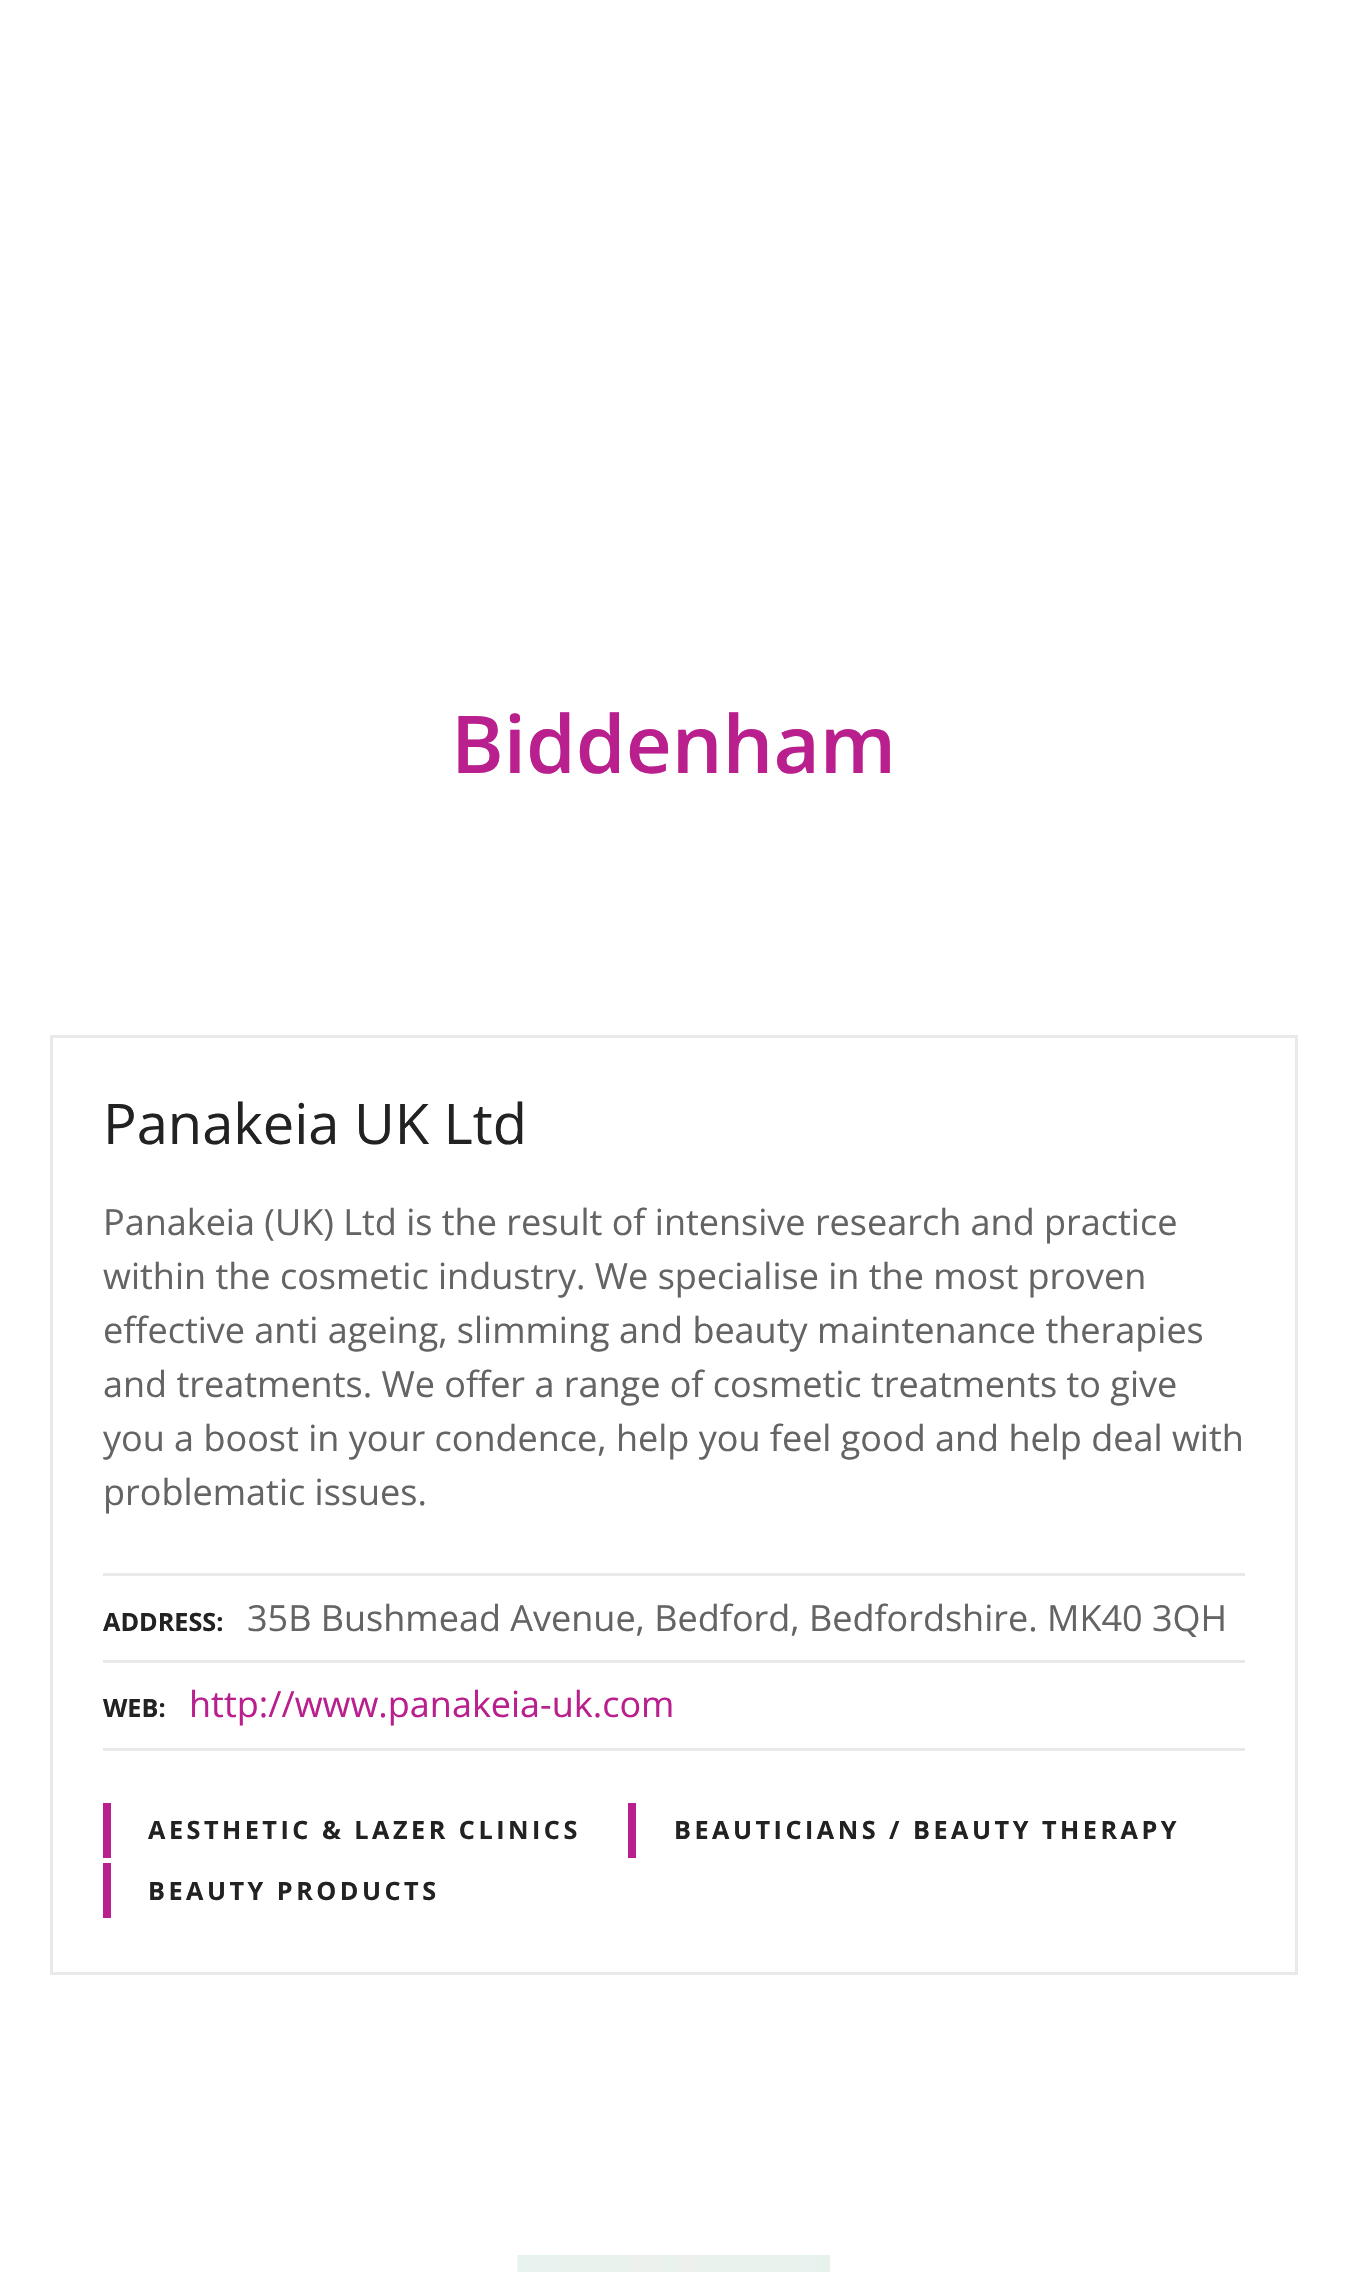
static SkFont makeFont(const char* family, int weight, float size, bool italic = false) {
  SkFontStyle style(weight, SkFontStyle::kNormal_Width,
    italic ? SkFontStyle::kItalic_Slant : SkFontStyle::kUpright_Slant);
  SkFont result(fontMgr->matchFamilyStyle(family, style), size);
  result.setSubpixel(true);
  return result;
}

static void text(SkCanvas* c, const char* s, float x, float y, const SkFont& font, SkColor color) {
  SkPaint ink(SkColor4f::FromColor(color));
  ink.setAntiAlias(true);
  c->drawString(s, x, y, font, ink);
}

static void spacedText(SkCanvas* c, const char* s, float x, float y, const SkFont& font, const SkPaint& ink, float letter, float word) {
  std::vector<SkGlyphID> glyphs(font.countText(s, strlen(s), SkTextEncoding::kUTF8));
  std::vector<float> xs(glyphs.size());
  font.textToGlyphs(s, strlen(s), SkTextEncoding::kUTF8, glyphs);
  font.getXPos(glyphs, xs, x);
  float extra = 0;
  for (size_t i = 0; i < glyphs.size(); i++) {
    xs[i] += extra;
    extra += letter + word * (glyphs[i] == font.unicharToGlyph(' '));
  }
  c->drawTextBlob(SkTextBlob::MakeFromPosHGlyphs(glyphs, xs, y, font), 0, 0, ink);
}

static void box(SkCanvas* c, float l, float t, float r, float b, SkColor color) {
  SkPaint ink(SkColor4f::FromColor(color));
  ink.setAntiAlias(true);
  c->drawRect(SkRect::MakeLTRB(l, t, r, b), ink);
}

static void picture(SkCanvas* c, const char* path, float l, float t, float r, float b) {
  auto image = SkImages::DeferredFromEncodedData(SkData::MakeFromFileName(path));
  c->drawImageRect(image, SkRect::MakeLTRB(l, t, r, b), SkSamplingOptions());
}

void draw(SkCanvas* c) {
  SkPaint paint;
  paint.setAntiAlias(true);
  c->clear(0xffffffff);
  SkFont face1 = makeFont("Open Sans", 600, 80);
  text(c, "Biddenham", 451, 773, face1, 0xffba1f8e);
  paint.setStyle(SkPaint::kStroke_Style);
  paint.setStrokeWidth(3);
  paint.setColor(0xffe9e9e9);
  c->drawRect(SkRect::MakeLTRB(51.5f, 1036.5f, 1296.5f, 1973.5f), paint);
  SkFont face2 = makeFont("Open Sans", 400, 56);
  text(c, "Panakeia UK Ltd", 103, 1144, face2, 0xff222222);
  SkFont face3 = makeFont("Open Sans", 400, 36);
  text(c, "Panakeia (UK) Ltd is the result of intensive research and practice", 103, 1235, face3, 0xff646464);
  text(c, "within the cosmetic industry. We specialise in the most proven", 103, 1289, face3, 0xff646464);
  text(c, "effective anti ageing, slimming and beauty maintenance therapies", 103, 1343, face3, 0xff646464);
  text(c, "and treatments. We offer a range of cosmetic treatments to give", 103, 1397, face3, 0xff646464);
  text(c, "you a boost in your condence, help you feel good and help deal with", 103, 1451, face3, 0xff646464);
  text(c, "problematic issues.", 103, 1505, face3, 0xff646464);
  box(c, 103, 1573, 1245, 1576, 0xffe9e9e9);
  box(c, 103, 1660, 1245, 1663, 0xffe9e9e9);
  SkFont face4 = makeFont("Open Sans", 700, 25.2f);
  text(c, "ADDRESS:", 103, 1631, face4, 0xff222222);
  text(c, "35B Bushmead Avenue, Bedford, Bedfordshire. MK40 3QH", 247, 1631, face3, 0xff646464);
  box(c, 103, 1748, 1245, 1751, 0xffe9e9e9);
  text(c, "WEB:", 103, 1717, face4, 0xff222222);
  text(c, "http://www.panakeia-uk.com", 189, 1717, face3, 0xffba1f8e);
  box(c, 103, 1803, 111, 1858, 0xffba1f8e);
  paint.setStyle(SkPaint::kFill_Style);
  paint.setColor(0xff222222);
  spacedText(c, "AESTHETIC & LAZER CLINICS", 148, 1839, face4, paint, 3.5f, 0);
  box(c, 628, 1803, 636, 1858, 0xffba1f8e);
  spacedText(c, "BEAUTICIANS / BEAUTY THERAPY", 674, 1839, face4, paint, 3.5f, 0);
  box(c, 103, 1863, 111, 1918, 0xffba1f8e);
  spacedText(c, "BEAUTY PRODUCTS", 148, 1900, face4, paint, 3.5f, 0);
  picture(c, "img_01.png", 517, 2255, 830, 2272);
}
